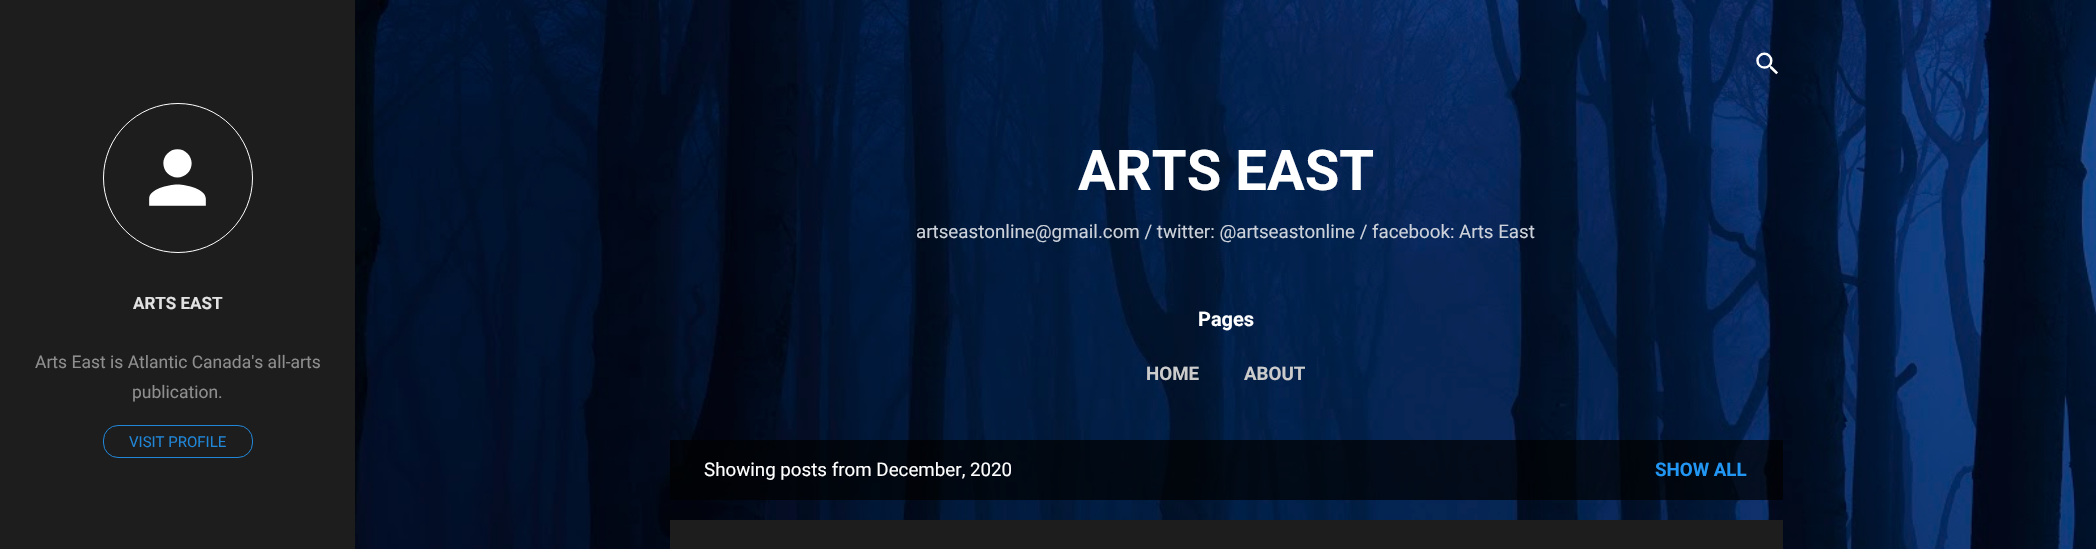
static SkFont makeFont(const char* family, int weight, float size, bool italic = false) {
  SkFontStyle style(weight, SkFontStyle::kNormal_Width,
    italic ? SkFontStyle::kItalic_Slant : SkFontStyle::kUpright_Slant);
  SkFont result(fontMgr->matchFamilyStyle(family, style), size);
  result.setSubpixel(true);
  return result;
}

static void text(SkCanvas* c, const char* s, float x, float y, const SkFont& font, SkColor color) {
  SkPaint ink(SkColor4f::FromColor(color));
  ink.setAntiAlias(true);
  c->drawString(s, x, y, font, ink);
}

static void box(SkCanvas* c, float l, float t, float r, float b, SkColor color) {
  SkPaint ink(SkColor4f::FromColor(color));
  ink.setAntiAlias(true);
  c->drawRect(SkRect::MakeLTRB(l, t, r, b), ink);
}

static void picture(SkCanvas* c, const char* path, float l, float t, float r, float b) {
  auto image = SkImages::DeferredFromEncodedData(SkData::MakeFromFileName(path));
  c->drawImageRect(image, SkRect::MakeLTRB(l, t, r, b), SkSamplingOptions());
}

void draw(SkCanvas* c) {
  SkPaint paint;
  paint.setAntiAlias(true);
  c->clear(0xffffffff);
  box(c, 0, 0, 355, 549, 0xff1d1d1d);
  paint.setStyle(SkPaint::kStroke_Style);
  paint.setStrokeWidth(1);
  paint.setColor(0xffffffff);
  c->drawCircle(178, 178, 74.5f, paint);
  picture(c, "img_01.png", 149, 149, 206, 206);
  SkFont face1 = makeFont("Roboto", 700, 17);
  text(c, "ARTS EAST", 133, 309, face1, 0xffe2e2e2);
  SkFont face2 = makeFont("Roboto", 400, 17.5f);
  text(c, "Arts East is Atlantic Canada's all-arts", 35, 368, face2, 0xff8e8e8e);
  text(c, "publication.", 132, 398, face2, 0xff8e8e8e);
  paint.setColor(0xff2086d7);
  c->drawRoundRect(SkRect::MakeLTRB(103.5f, 425.5f, 252.5f, 457.5f), 14.5f, 14.5f, paint);
  SkFont face3 = makeFont("Roboto", 400, 15);
  text(c, "VISIT PROFILE", 129, 447, face3, 0xff2086d7);
  picture(c, "img_02.png", 355, 0, 2096, 549);
  picture(c, "img_03.png", 1756, 52, 1778, 75);
  SkFont face4 = makeFont("Roboto", 700, 56.25f);
  text(c, "ARTS EAST", 1078, 190, face4, 0xffffffff);
  SkFont face5 = makeFont("Roboto", 400, 18.75f);
  text(c, "artseastonline@gmail.com / twitter: @artseastonline / facebook: Arts East", 916, 238, face5, 0xffcdd2da);
  SkFont face6 = makeFont("Roboto", 700, 20);
  text(c, "Pages", 1198, 326, face6, 0xffffffff);
  SkFont face7 = makeFont("Roboto", 700, 18.75f);
  text(c, "HOME", 1146, 380, face7, 0xffcccccc);
  text(c, "ABOUT", 1244, 380, face7, 0xffcccccc);
  box(c, 670, 440, 1783, 500, 0xb3000000);
  text(c, "Showing posts from December, 2020", 704, 476, face5, 0xffffffff);
  text(c, "SHOW ALL", 1655, 476, face7, 0xff2196f3);
  box(c, 670, 520, 1783, 549, 0xff1d1d1d);
}
